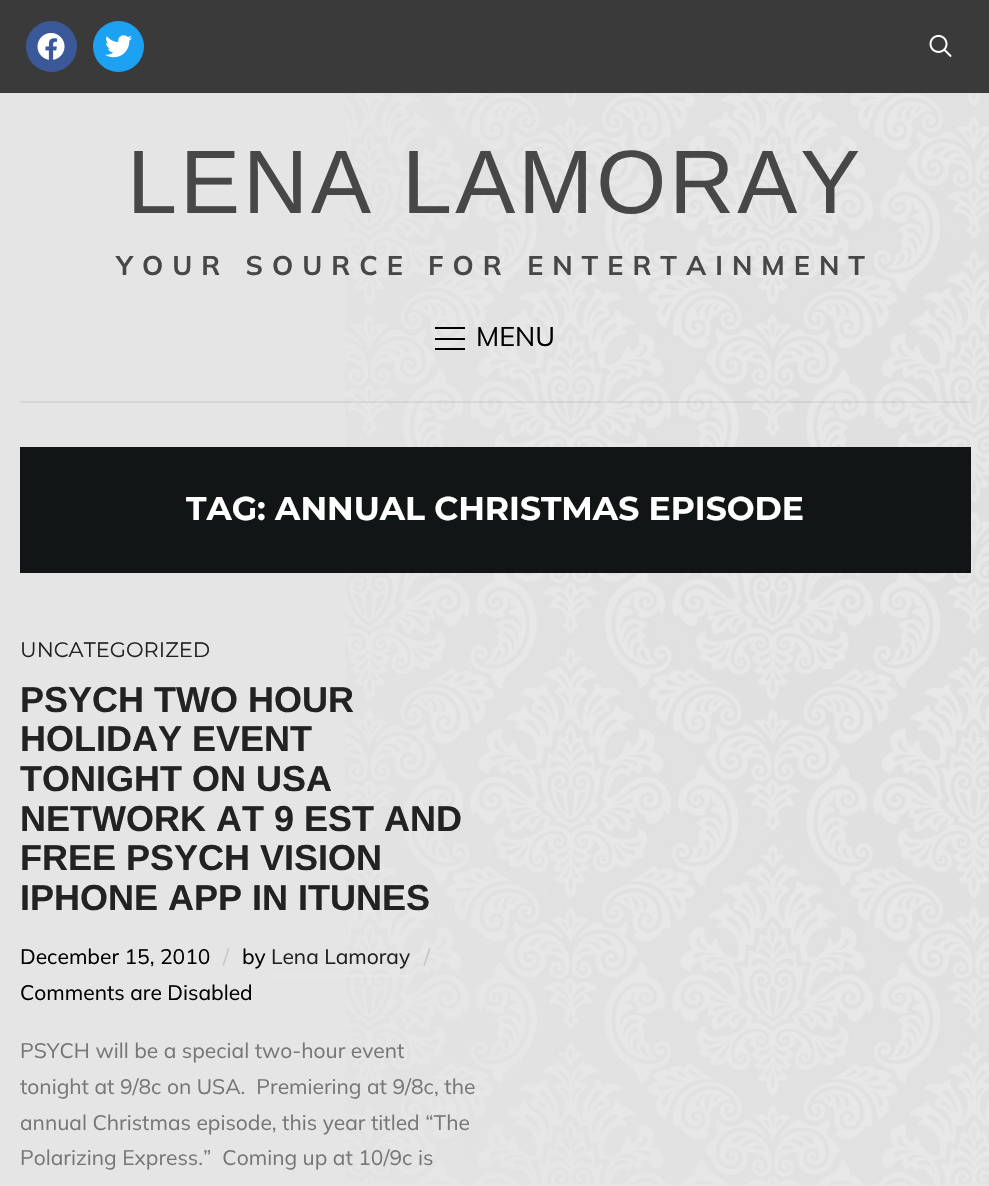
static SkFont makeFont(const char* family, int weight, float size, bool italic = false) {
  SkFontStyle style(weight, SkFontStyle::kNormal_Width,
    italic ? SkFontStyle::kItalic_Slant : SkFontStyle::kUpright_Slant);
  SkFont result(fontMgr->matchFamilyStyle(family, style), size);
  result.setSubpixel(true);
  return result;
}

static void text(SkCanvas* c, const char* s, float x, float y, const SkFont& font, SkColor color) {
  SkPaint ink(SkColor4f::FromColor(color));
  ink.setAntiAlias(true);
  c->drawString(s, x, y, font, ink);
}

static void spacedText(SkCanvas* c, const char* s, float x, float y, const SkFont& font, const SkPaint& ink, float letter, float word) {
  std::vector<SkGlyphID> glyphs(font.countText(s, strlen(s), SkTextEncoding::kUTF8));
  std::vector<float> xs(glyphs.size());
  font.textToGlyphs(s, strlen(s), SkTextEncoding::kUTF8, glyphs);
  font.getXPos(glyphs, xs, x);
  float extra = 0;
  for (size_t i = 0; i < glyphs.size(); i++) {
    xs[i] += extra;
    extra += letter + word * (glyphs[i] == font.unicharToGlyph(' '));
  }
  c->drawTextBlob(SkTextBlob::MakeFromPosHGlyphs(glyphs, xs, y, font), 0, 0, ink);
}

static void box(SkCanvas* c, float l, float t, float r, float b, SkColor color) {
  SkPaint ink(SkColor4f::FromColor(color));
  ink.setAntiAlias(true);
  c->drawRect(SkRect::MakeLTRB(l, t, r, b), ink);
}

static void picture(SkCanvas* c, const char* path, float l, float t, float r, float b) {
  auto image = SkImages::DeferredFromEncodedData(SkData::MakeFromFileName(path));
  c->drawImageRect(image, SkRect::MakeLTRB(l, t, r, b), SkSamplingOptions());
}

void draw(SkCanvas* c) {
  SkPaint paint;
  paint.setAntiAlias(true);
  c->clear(0xffe5e5e5);
  picture(c, "img_01.png", 345, 93, 989, 1185);
  box(c, 0, 0, 989, 93, 0xff3a3a3a);
  paint.setColor(0xff3b5998);
  c->drawCircle(51.5f, 46.5f, 25.5f, paint);
  picture(c, "img_02.png", 37, 33, 65, 60);
  paint.setColor(0xff1da1f2);
  c->drawCircle(118.5f, 46.5f, 25.5f, paint);
  picture(c, "img_03.png", 105, 35, 132, 58);
  picture(c, "img_04.png", 929, 34, 952, 57);
  SkFont face1 = makeFont("Liberation Sans", 400, 90);
  paint.setColor(0xff474747);
  spacedText(c, "LENA LAMORAY", 127, 213, face1, paint, 3, 0);
  SkFont face2 = makeFont("Mulish", 700, 27);
  spacedText(c, "YOUR SOURCE FOR ENTERTAINMENT", 116, 275, face2, paint, 9, 0);
  box(c, 20, 401, 971, 403, 0x0f000000);
  box(c, 435, 327, 465, 329, 0xff000000);
  box(c, 435, 338, 465, 340, 0xff000000);
  box(c, 435, 348, 465, 350, 0xff000000);
  SkFont face3 = makeFont("Mulish", 400, 27);
  text(c, "MENU", 476, 346, face3, 0xff000000);
  box(c, 20, 447, 971, 573, 0xff121516);
  SkFont face4 = makeFont("Montserrat", 700, 33);
  text(c, "TAG: ANNUAL CHRISTMAS EPISODE", 186, 520, face4, 0xffffffff);
  SkFont face5 = makeFont("Montserrat", 400, 21);
  text(c, "UNCATEGORIZED", 20, 657, face5, 0xff222222);
  SkFont face6 = makeFont("Liberation Sans", 700, 36);
  text(c, "PSYCH TWO HOUR", 20, 712, face6, 0xff222222);
  text(c, "HOLIDAY EVENT", 20, 751, face6, 0xff222222);
  text(c, "TONIGHT ON USA", 20, 791, face6, 0xff222222);
  text(c, "NETWORK AT 9 EST AND", 20, 831, face6, 0xff222222);
  text(c, "FREE PSYCH VISION", 20, 870, face6, 0xff222222);
  text(c, "IPHONE APP IN ITUNES", 20, 910, face6, 0xff222222);
  SkFont face7 = makeFont("Mulish", 400, 21);
  text(c, "December 15, 2010", 20, 964, face7, 0xff000000);
  text(c, "/", 223, 964, face7, 0xffc4c7c8);
  text(c, "by", 242, 964, face7, 0xff000000);
  text(c, "Lena Lamoray", 271, 964, face7, 0xff222222);
  box(c, 272, 975, 411, 977, 0xffe8e8e8);
  text(c, "/", 424, 964, face7, 0xffc4c7c8);
  text(c, "Comments are Disabled", 20, 1000, face7, 0xff000000);
  text(c, "PSYCH will be a special two-hour event", 20, 1058, face7, 0xff777777);
  text(c, "tonight at 9/8c on USA.  Premiering at 9/8c, the", 20, 1094, face7, 0xff777777);
  text(c, "annual Christmas episode, this year titled “The", 20, 1130, face7, 0xff777777);
  text(c, "Polarizing Express.”  Coming up at 10/9c is", 20, 1165, face7, 0xff777777);
}
